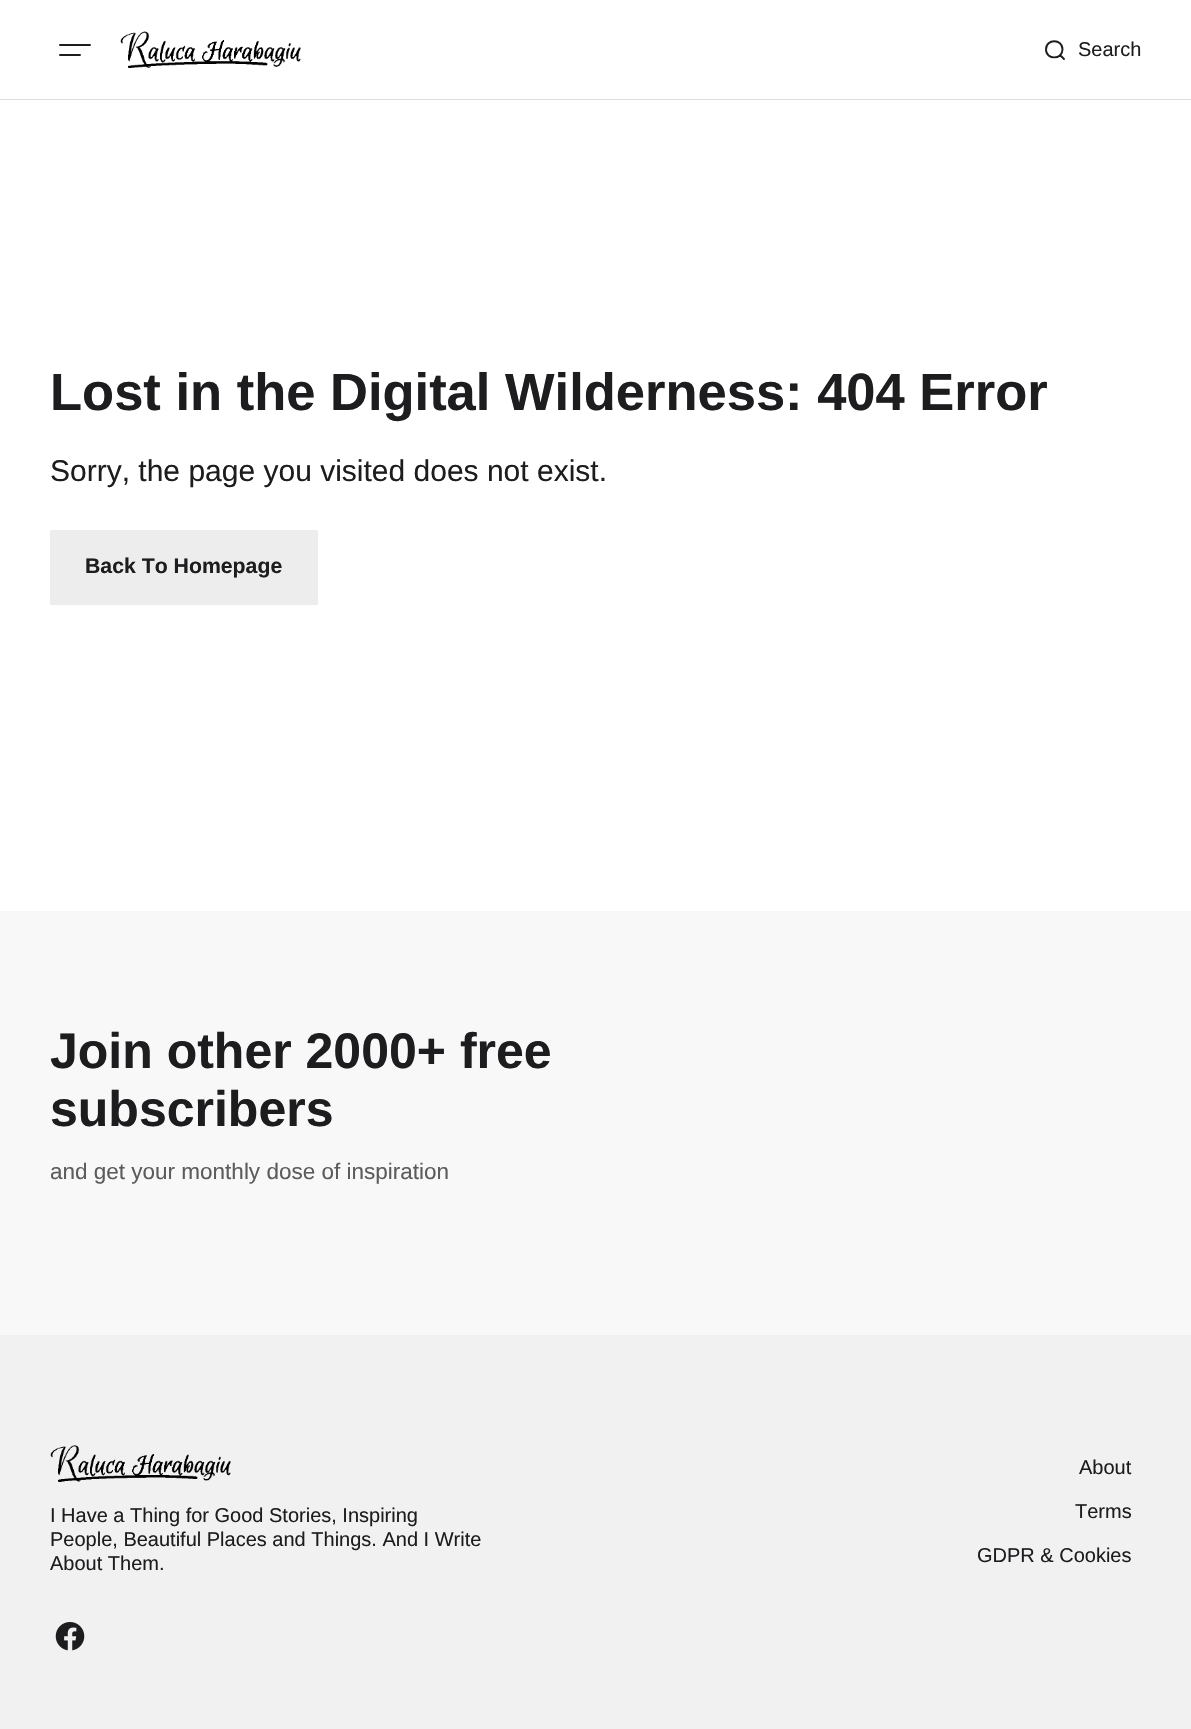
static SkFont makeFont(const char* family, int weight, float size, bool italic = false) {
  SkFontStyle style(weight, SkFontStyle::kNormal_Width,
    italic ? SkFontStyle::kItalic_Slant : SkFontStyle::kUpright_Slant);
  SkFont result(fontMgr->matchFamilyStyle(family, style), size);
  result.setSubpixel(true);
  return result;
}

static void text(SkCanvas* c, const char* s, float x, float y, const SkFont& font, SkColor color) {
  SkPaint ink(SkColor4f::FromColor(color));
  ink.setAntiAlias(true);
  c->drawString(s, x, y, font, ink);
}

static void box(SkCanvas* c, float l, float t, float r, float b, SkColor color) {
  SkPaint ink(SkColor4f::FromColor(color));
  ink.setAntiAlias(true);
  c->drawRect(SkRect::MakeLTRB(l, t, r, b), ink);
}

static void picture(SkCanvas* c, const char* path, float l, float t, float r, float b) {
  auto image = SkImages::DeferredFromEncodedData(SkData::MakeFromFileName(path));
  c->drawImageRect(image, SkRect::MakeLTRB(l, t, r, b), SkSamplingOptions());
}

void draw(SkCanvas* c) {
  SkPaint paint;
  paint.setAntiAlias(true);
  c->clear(0xffffffff);
  box(c, 0, 99, 1191, 100, 0xffdddddd);
  paint.setStyle(SkPaint::kStroke_Style);
  paint.setStrokeWidth(1.9f);
  paint.setStrokeCap(SkPaint::kRound_Cap);
  paint.setColor(0xff1d1d1f);
  c->drawPath(SkPathBuilder().moveTo(60, 45).lineTo(90, 45).moveTo(60, 55).lineTo(80, 55).detach(), paint);
  picture(c, "img_01.png", 120, 31, 301, 68);
  c->drawPath(SkPathBuilder().moveTo(1060, 55).lineTo(1064, 59).moveTo(1062.5f, 49.5f).cubicTo(1062.5f, 60, 1046, 60, 1046, 49.5f).cubicTo(1046, 38.5f, 1062.5f, 38.5f, 1062.5f, 49.5f).close().detach(), paint);
  SkFont face1 = makeFont("Liberation Sans", 400, 20);
  text(c, "Search", 1078, 56, face1, 0xff1d1d1f);
  SkFont face2 = makeFont("Liberation Sans", 700, 52.5f);
  text(c, "Lost in the Digital Wilderness: 404 Error", 50, 410, face2, 0xff1d1d1f);
  SkFont face3 = makeFont("Liberation Sans", 400, 30);
  text(c, "Sorry, the page you visited does not exist.", 50, 481, face3, 0xff1d1d1f);
  box(c, 50, 530, 318, 605, 0xffededed);
  SkFont face4 = makeFont("Liberation Sans", 700, 21.25f);
  text(c, "Back To Homepage", 85, 573, face4, 0xff1d1d1f);
  box(c, 0, 911, 1191, 1335, 0xfff8f8f8);
  SkFont face5 = makeFont("Liberation Sans", 700, 50);
  text(c, "Join other 2000+ free", 50, 1068, face5, 0xff1d1d1f);
  text(c, "subscribers", 50, 1126, face5, 0xff1d1d1f);
  SkFont face6 = makeFont("Liberation Sans", 400, 22.5f);
  text(c, "and get your monthly dose of inspiration", 50, 1179, face6, 0xff5c5c5c);
  box(c, 0, 1335, 1191, 1729, 0xfff1f1f2);
  picture(c, "img_02.png", 50, 1445, 231, 1482);
  text(c, "I Have a Thing for Good Stories, Inspiring", 50, 1522, face1, 0xff1d1d1f);
  text(c, "People, Beautiful Places and Things. And I Write", 50, 1546, face1, 0xff1d1d1f);
  text(c, "About Them.", 50, 1570, face1, 0xff1d1d1f);
  picture(c, "img_03.png", 55, 1622, 85, 1651);
  text(c, "About", 1079, 1474, face1, 0xff1d1d1f);
  text(c, "Terms", 1075, 1518, face1, 0xff1d1d1f);
  text(c, "GDPR & Cookies", 977, 1562, face1, 0xff1d1d1f);
}
